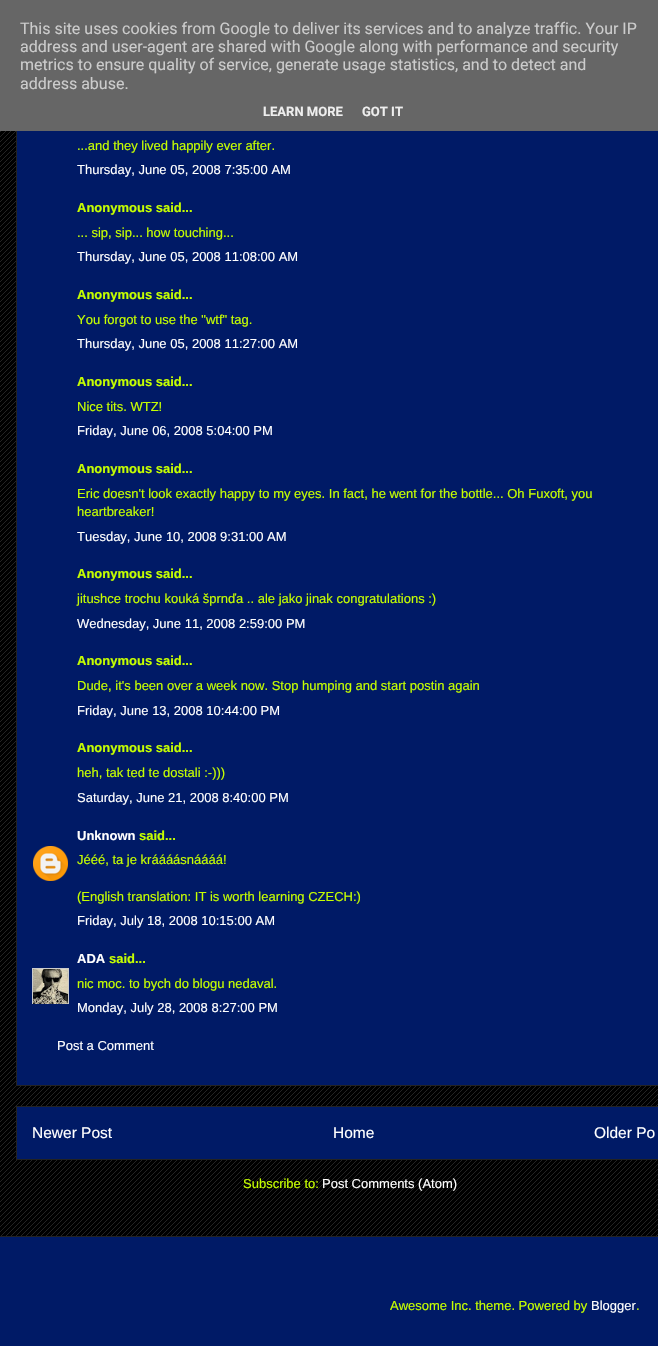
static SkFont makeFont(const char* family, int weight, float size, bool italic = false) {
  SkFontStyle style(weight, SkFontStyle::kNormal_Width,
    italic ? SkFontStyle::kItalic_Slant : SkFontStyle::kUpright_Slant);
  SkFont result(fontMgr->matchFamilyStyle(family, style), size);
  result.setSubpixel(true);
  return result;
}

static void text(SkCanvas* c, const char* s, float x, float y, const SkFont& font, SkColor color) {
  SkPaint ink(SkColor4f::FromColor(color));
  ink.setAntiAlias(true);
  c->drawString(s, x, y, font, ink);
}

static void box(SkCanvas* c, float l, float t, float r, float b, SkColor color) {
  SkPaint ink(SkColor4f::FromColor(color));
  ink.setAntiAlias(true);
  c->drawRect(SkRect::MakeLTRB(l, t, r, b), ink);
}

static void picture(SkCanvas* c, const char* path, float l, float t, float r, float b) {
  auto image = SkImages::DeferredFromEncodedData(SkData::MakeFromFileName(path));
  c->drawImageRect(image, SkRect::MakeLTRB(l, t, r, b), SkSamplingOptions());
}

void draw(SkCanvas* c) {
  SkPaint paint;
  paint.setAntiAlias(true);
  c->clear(0xff000000);
  picture(c, "img_01.png", 0, 131, 658, 1236);
  box(c, 17, 131, 658, 1085, 0xff001a66);
  paint.setStyle(SkPaint::kStroke_Style);
  paint.setStrokeWidth(1);
  paint.setColor(0xff222222);
  c->drawRect(SkRect::MakeLTRB(16.5f, -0.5f, 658.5f, 1085.5f), paint);
  box(c, 0, 0, 658, 131, 0xff666666);
  SkFont face1 = makeFont("Roboto", 400, 16);
  text(c, "This site uses cookies from Google to deliver its services and to analyze traffic. Your IP", 20, 34, face1, 0xffcccccc);
  text(c, "address and user-agent are shared with Google along with performance and security", 20, 52, face1, 0xffcccccc);
  text(c, "metrics to ensure quality of service, generate usage statistics, and to detect and", 20, 70, face1, 0xffcccccc);
  text(c, "address abuse.", 20, 89, face1, 0xffcccccc);
  SkFont face2 = makeFont("Roboto", 700, 13);
  text(c, "LEARN MORE", 263, 116, face2, 0xffeeeeee);
  text(c, "GOT IT", 362, 116, face2, 0xffeeeeee);
  SkFont face3 = makeFont("Liberation Sans", 400, 13);
  text(c, "...and they lived happily ever after.", 77, 150, face3, 0xffc6ff00);
  text(c, "Thursday, June 05, 2008 7:35:00 AM", 77, 174, face3, 0xffffffff);
  SkFont face4 = makeFont("Liberation Sans", 700, 13);
  text(c, "Anonymous said...", 77, 212, face4, 0xffc6ff00);
  text(c, "... sip, sip... how touching...", 77, 237, face3, 0xffc6ff00);
  text(c, "Thursday, June 05, 2008 11:08:00 AM", 77, 261, face3, 0xffffffff);
  text(c, "Anonymous said...", 77, 299, face4, 0xffc6ff00);
  text(c, "You forgot to use the \"wtf\" tag.", 77, 324, face3, 0xffc6ff00);
  text(c, "Thursday, June 05, 2008 11:27:00 AM", 77, 348, face3, 0xffffffff);
  text(c, "Anonymous said...", 77, 386, face4, 0xffc6ff00);
  text(c, "Nice tits. WTZ!", 77, 411, face3, 0xffc6ff00);
  text(c, "Friday, June 06, 2008 5:04:00 PM", 77, 435, face3, 0xffffffff);
  text(c, "Anonymous said...", 77, 473, face4, 0xffc6ff00);
  text(c, "Eric doesn't look exactly happy to my eyes. In fact, he went for the bottle... Oh Fuxoft, you", 77, 498, face3, 0xffc6ff00);
  text(c, "heartbreaker!", 77, 516, face3, 0xffc6ff00);
  text(c, "Tuesday, June 10, 2008 9:31:00 AM", 77, 541, face3, 0xffffffff);
  text(c, "Anonymous said...", 77, 578, face4, 0xffc6ff00);
  text(c, "jitushce trochu kouká šprnďa .. ale jako jinak congratulations :)", 77, 603, face3, 0xffc6ff00);
  text(c, "Wednesday, June 11, 2008 2:59:00 PM", 77, 628, face3, 0xffffffff);
  text(c, "Anonymous said...", 77, 665, face4, 0xffc6ff00);
  text(c, "Dude, it's been over a week now. Stop humping and start postin again", 77, 690, face3, 0xffc6ff00);
  text(c, "Friday, June 13, 2008 10:44:00 PM", 77, 715, face3, 0xffffffff);
  text(c, "Anonymous said...", 77, 752, face4, 0xffc6ff00);
  text(c, "heh, tak ted te dostali :-)))", 77, 777, face3, 0xffc6ff00);
  text(c, "Saturday, June 21, 2008 8:40:00 PM", 77, 802, face3, 0xffffffff);
  text(c, "Unknown", 77, 840, face4, 0xffffffff);
  text(c, "said...", 139, 840, face4, 0xffc6ff00);
  picture(c, "img_02.png", 33, 846, 68, 881);
  text(c, "Jééé, ta je kráááásnáááá!", 77, 864, face3, 0xffc6ff00);
  text(c, "(English translation: IT is worth learning CZECH:)", 77, 901, face3, 0xffc6ff00);
  text(c, "Friday, July 18, 2008 10:15:00 AM", 77, 925, face3, 0xffffffff);
  text(c, "ADA", 77, 963, face4, 0xffffffff);
  text(c, "said...", 109, 963, face4, 0xffc6ff00);
  c->save();
  c->clipRect(SkRect::MakeLTRB(32, 968, 69, 1004));
  paint.setColor(0xffcccccc);
  c->drawRect(SkRect::MakeLTRB(32.5f, 968.5f, 68.5f, 1004.5f), paint);
  c->restore();
  picture(c, "img_03.png", 33, 969, 68, 1004);
  text(c, "nic moc. to bych do blogu nedaval.", 77, 988, face3, 0xffc6ff00);
  text(c, "Monday, July 28, 2008 8:27:00 PM", 77, 1012, face3, 0xffffffff);
  text(c, "Post a Comment", 57, 1050, face3, 0xffffffff);
  paint.setStyle(SkPaint::kFill_Style);
  paint.setColor(0xff001a66);
  c->drawRect(SkRect::MakeLTRB(16.5f, 1106.5f, 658.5f, 1159.5f), paint);
  paint.setStyle(SkPaint::kStroke_Style);
  paint.setColor(0xff222222);
  c->drawRect(SkRect::MakeLTRB(16.5f, 1106.5f, 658.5f, 1159.5f), paint);
  SkFont face5 = makeFont("Liberation Sans", 400, 15.5f);
  text(c, "Newer Post", 32, 1138, face5, 0xffffffff);
  text(c, "Home", 333, 1138, face5, 0xffffffff);
  text(c, "Older Po", 594, 1138, face5, 0xffffffff);
  text(c, "Subscribe to:", 243, 1188, face3, 0xffc6ff00);
  text(c, "Post Comments (Atom)", 322, 1188, face3, 0xffffffff);
  box(c, 0, 1237, 658, 1346, 0xff001a66);
  box(c, 0, 1236, 658, 1237, 0xff222222);
  text(c, "Awesome Inc. theme. Powered by", 390, 1310, face3, 0xffc6ff00);
  text(c, "Blogger", 591, 1310, face3, 0xffffffff);
  text(c, ".", 636, 1310, face3, 0xffc6ff00);
}
